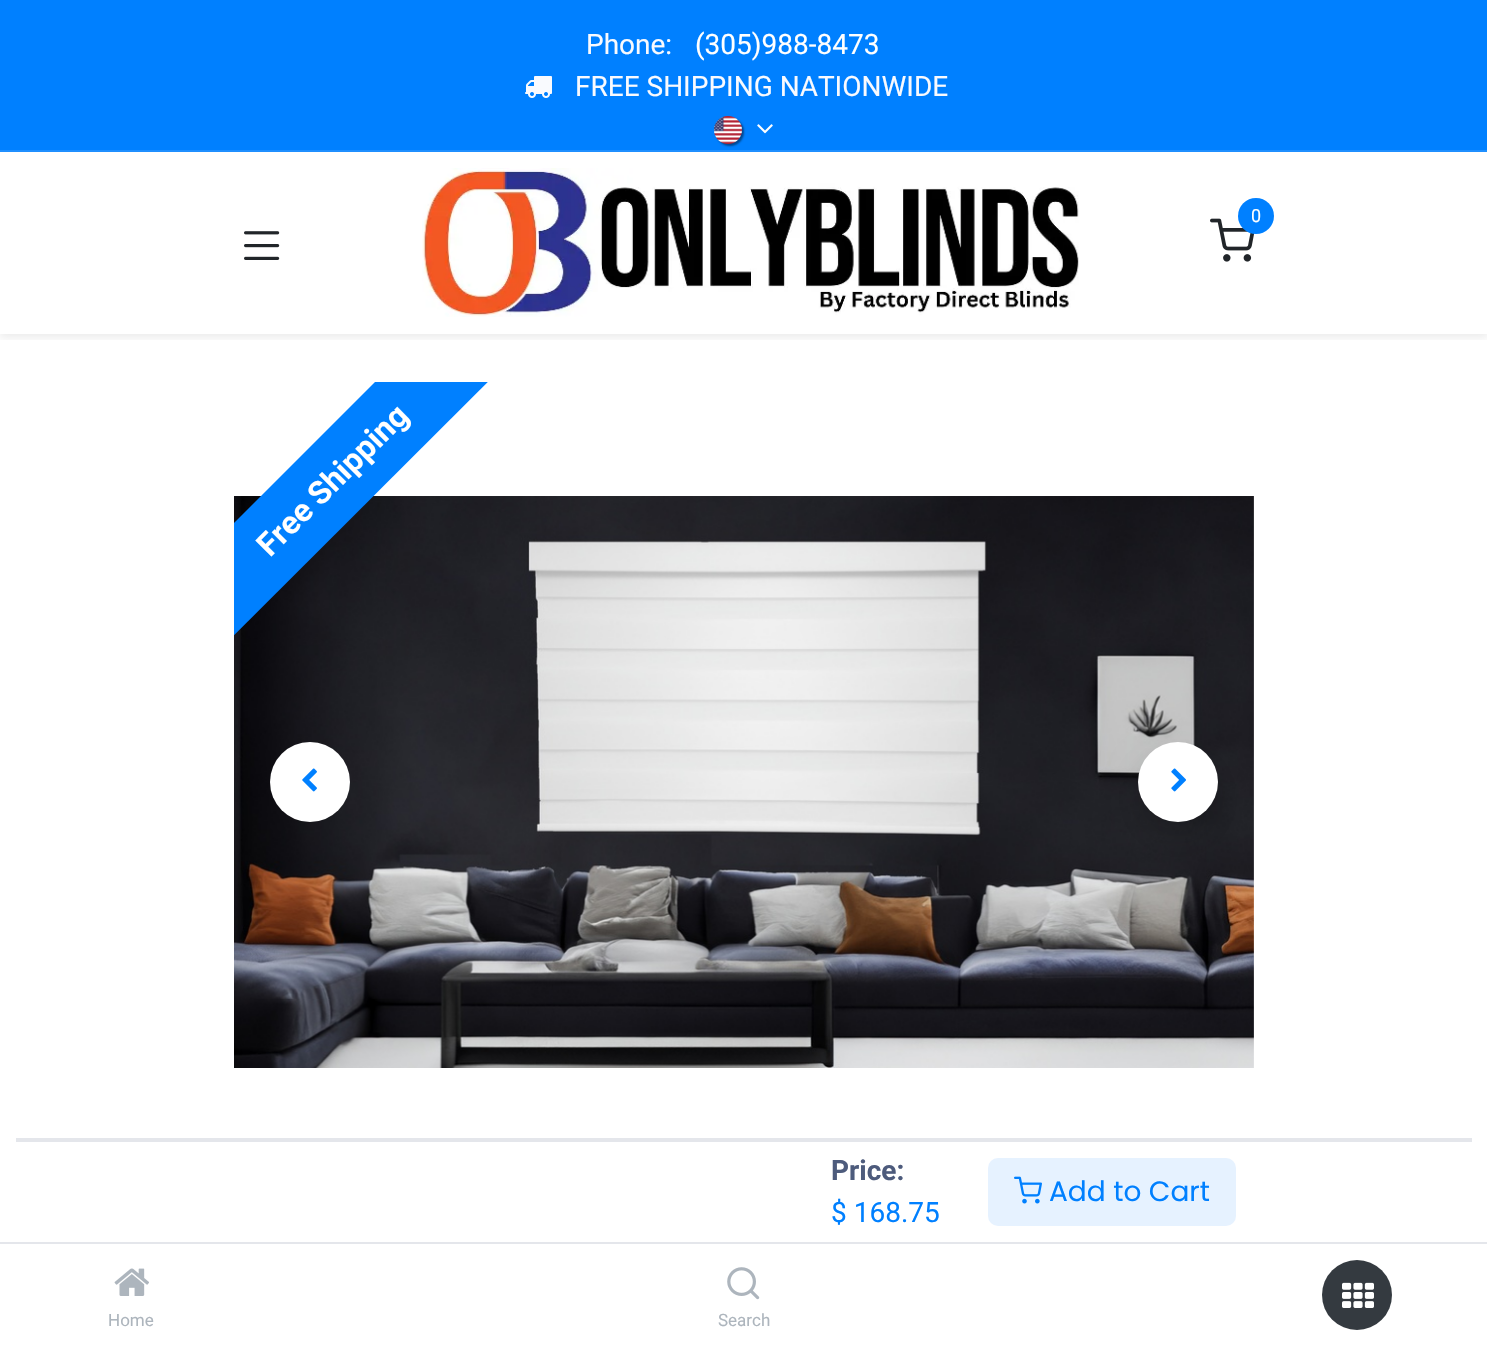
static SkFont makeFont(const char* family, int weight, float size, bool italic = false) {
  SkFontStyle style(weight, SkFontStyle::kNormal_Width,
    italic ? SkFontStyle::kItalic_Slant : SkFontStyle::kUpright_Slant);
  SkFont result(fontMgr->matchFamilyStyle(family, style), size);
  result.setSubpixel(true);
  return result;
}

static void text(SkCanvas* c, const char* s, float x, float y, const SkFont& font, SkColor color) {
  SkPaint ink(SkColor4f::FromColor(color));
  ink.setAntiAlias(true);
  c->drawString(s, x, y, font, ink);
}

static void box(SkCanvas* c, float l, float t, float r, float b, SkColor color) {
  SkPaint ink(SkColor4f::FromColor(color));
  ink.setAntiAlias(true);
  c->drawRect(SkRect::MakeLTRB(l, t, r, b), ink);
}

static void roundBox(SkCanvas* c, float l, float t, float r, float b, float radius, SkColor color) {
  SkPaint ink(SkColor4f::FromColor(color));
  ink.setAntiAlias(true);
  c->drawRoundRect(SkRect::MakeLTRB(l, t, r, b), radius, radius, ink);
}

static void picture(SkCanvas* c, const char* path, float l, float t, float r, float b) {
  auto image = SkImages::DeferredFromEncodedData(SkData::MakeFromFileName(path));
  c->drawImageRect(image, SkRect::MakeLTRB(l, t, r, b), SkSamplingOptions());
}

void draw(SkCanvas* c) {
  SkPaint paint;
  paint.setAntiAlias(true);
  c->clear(0xffffffff);
  box(c, 0, 0, 1487, 150, 0xff0080ff);
  box(c, 0, 150, 1487, 152, 0xff1f8fff);
  SkFont face1 = makeFont("Roboto", 400, 28);
  text(c, "Phone:", 586, 54, face1, 0xfff9fafe);
  text(c, "(305)988-8473", 695, 54, face1, 0xffffffff);
  picture(c, "img_01.png", 525, 76, 552, 98);
  text(c, "FREE SHIPPING NATIONWIDE", 575, 96, face1, 0xfff9fafe);
  paint.setColor(0x6e000000);
  paint.setMaskFilter(SkMaskFilter::MakeBlur(kNormal_SkBlurStyle, 1));
  c->drawRoundRect(SkRect::MakeLTRB(716, 118, 744, 146), 14, 14, paint);
  paint.setMaskFilter(nullptr);
  picture(c, "img_02.png", 714, 116, 742, 144);
  picture(c, "img_03.png", 757, 124, 773, 134);
  c->save();
  c->clipRect(SkRect::MakeLTRB(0, 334, 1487, 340));
  paint.setColor(0x12000000);
  paint.setMaskFilter(SkMaskFilter::MakeBlur(kNormal_SkBlurStyle, 4));
  c->drawRect(SkRect::MakeLTRB(0, 156, 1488, 338), paint);
  paint.setMaskFilter(nullptr);
  c->restore();
  picture(c, "img_04.png", 422, 168, 1079, 317);
  picture(c, "img_05.png", 1210, 218, 1255, 262);
  paint.setColor(0xff0080ff);
  c->drawCircle(1256, 216, 18, paint);
  SkFont face2 = makeFont("Roboto", 400, 18);
  text(c, "0", 1251, 222, face2, 0xffffffff);
  picture(c, "img_06.png", 244, 231, 280, 260);
  picture(c, "img_07.png", 234, 496, 1254, 1068);
  c->save();
  c->clipRect(SkRect::MakeLTRB(234, 382, 1254, 1182));
  c->drawPath(SkPathBuilder().moveTo(93, 664).lineTo(516, 241).lineTo(573, 297).lineTo(149, 720).close().detach(), paint);
  c->restore();
  SkFont face3 = makeFont("Roboto", 700, 32);
  c->save();
  c->rotate(-45, 270, 558);
  text(c, "Free Shipping", 270, 558, face3, 0xffffffff);
  c->restore();
  paint.setColor(0xffffffff);
  c->drawCircle(310, 782, 40, paint);
  picture(c, "img_08.png", 302, 768, 317, 792);
  paint.setColor(0x26000000);
  paint.setMaskFilter(SkMaskFilter::MakeBlur(kNormal_SkBlurStyle, 16));
  c->drawRoundRect(SkRect::MakeLTRB(1138, 758, 1218, 838), 40, 40, paint);
  paint.setMaskFilter(nullptr);
  paint.setColor(0xffffffff);
  c->drawCircle(1178, 782, 40, paint);
  picture(c, "img_09.png", 1171, 768, 1186, 792);
  box(c, 16, 1138, 1472, 1142, 0xffe4e6eb);
  box(c, 0, 1242, 1487, 1244, 0xffe4e6eb);
  SkFont face4 = makeFont("Roboto", 700, 28);
  text(c, "Price:", 831, 1180, face4, 0xff4d5b7c);
  text(c, "$ 168.75", 831, 1222, face1, 0xff0080ff);
  roundBox(c, 988, 1158, 1236, 1226, 10, 0xffe6f2ff);
  picture(c, "img_10.png", 1014, 1176, 1042, 1204);
  SkFont face5 = makeFont("Poppins", 400, 28);
  text(c, "Add to Cart", 1049, 1201, face5, 0xff0080ff);
  picture(c, "img_11.png", 114, 1268, 149, 1296);
  SkFont face6 = makeFont("Roboto", 400, 17);
  text(c, "Home", 108, 1326, face6, 0xffadb5bd);
  picture(c, "img_12.png", 727, 1267, 760, 1300);
  text(c, "Search", 718, 1326, face6, 0xffadb5bd);
  paint.setColor(0xff343a40);
  c->drawCircle(1357, 1295, 35, paint);
  picture(c, "img_13.png", 1342, 1282, 1374, 1308);
}
